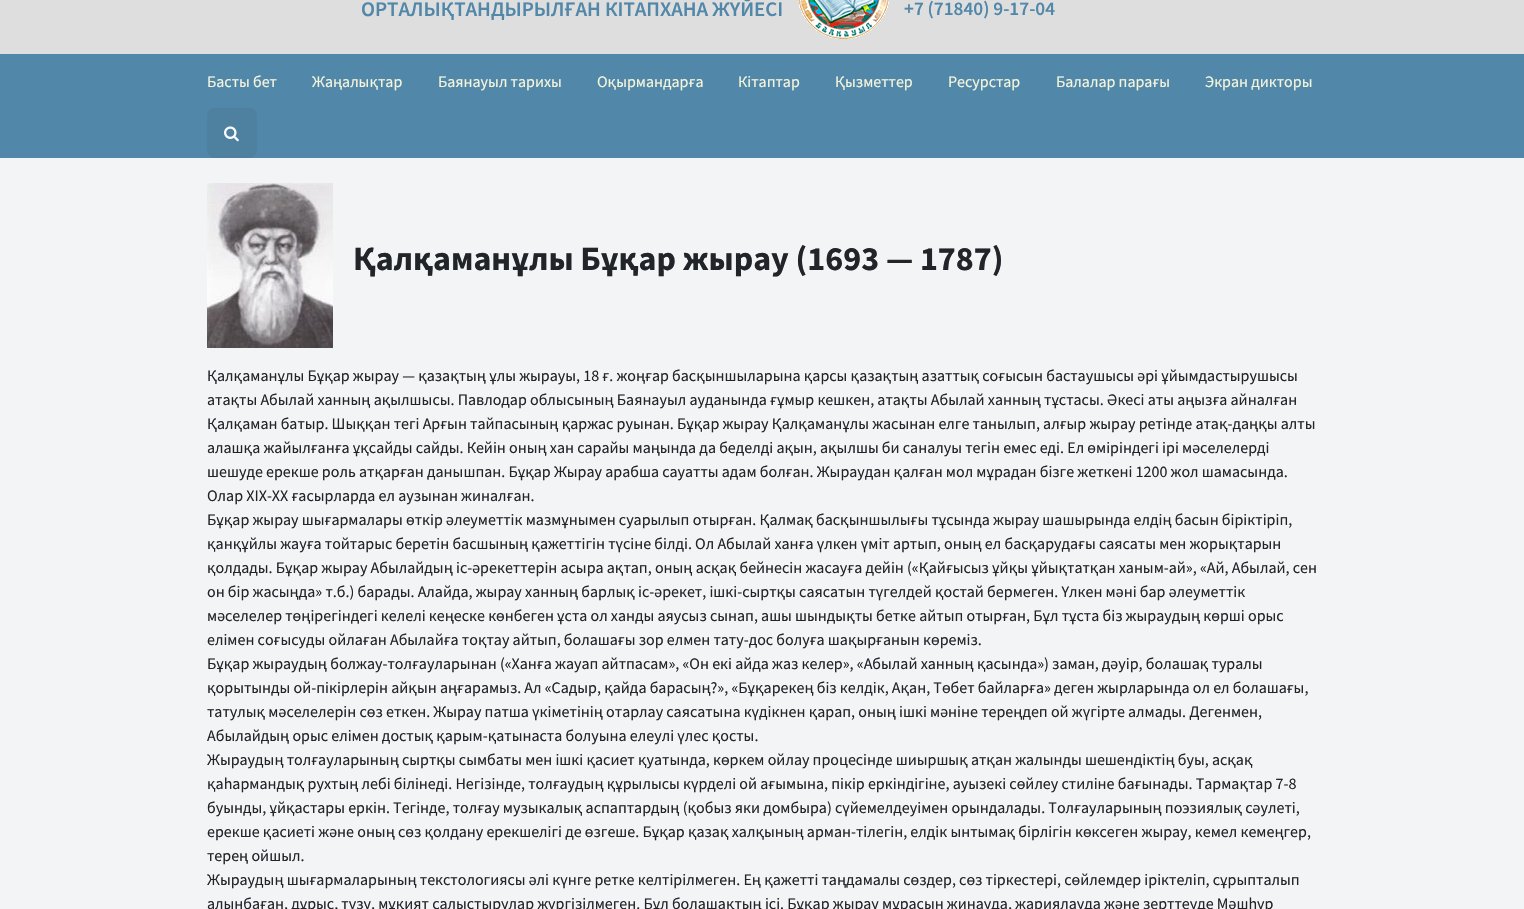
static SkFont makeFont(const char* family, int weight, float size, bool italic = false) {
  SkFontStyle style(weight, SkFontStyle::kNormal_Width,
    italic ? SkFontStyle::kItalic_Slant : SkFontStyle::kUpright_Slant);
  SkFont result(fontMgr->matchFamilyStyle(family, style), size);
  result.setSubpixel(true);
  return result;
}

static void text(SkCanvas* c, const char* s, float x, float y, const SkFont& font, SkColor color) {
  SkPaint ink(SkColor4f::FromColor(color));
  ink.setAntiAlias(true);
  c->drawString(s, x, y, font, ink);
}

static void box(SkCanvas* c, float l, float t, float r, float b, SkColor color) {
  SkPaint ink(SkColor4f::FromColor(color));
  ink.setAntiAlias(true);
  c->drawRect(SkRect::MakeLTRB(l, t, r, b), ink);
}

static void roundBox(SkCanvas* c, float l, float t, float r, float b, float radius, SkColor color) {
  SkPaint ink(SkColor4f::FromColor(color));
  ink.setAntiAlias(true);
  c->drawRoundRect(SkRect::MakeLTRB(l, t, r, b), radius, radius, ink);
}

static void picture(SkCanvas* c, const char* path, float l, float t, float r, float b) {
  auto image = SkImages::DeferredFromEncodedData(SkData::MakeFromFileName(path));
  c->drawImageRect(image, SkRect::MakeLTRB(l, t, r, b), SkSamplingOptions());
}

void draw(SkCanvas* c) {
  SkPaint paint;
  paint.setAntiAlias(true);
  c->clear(0xfff3f4f6);
  box(c, 0, 0, 1524, 54, 0xffdedede);
  SkFont face1 = makeFont("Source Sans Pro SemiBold", 600, 20.8f);
  text(c, "ОРТАЛЫҚТАНДЫРЫЛҒАН КІТАПХАНА ЖҮЙЕСІ", 361, 16, face1, 0xff5187a9);
  picture(c, "img_01.png", 798, 0, 889, 39);
  SkFont face2 = makeFont("Source Sans Pro SemiBold", 600, 19.25f);
  text(c, "+7 (71840) 9-17-04", 904, 15, face2, 0xff5187a9);
  box(c, 0, 54, 1524, 158, 0xff5187a9);
  SkFont face3 = makeFont("Source Sans Pro", 400, 16);
  text(c, "Басты бет", 207, 87, face3, 0xfff5f5dc);
  text(c, "Жаңалықтар", 312, 87, face3, 0xfff5f5dc);
  text(c, "Баянауыл тарихы", 438, 87, face3, 0xfff5f5dc);
  text(c, "Оқырмандарға", 597, 87, face3, 0xfff5f5dc);
  text(c, "Кітаптар", 738, 87, face3, 0xfff5f5dc);
  text(c, "Қызметтер", 835, 87, face3, 0xfff5f5dc);
  text(c, "Ресурстар", 948, 87, face3, 0xfff5f5dc);
  text(c, "Балалар парағы", 1056, 87, face3, 0xfff5f5dc);
  text(c, "Экран дикторы", 1205, 87, face3, 0xfff5f5dc);
  roundBox(c, 207, 108, 257, 158, 8, 0xff4e80a0);
  picture(c, "img_02.png", 224, 126, 239, 142);
  picture(c, "img_03.png", 207, 183, 333, 348);
  SkFont face4 = makeFont("Source Sans Pro", 700, 34);
  text(c, "Қалқаманұлы Бұқар жырау (1693 — 1787)", 353, 270, face4, 0xff212529);
  text(c, "Қалқаманұлы Бұқар жырау — қазақтың ұлы жырауы, 18 ғ. жоңғар басқыншыларына қарсы қазақтың азаттық соғысын бастаушысы әрі ұйымдастырушысы", 207, 381, face3, 0xff212529);
  text(c, "атақты Абылай ханның ақылшысы. Павлодар облысының Баянауыл ауданында ғұмыр кешкен, атақты Абылай ханның тұстасы. Әкесі аты аңызға айналған", 207, 405, face3, 0xff212529);
  text(c, "Қалқаман батыр. Шыққан тегі Арғын тайпасының қаржас руынан. Бұқар жырау Қалқаманұлы жасынан елге танылып, алғыр жырау ретінде атақ-даңқы алты", 207, 429, face3, 0xff212529);
  text(c, "алашқа жайылғанға ұқсайды сайды. Кейін оның хан сарайы маңында да беделді ақын, ақылшы би саналуы тегін емес еді. Ел өміріндегі ірі мәселелерді", 207, 453, face3, 0xff212529);
  text(c, "шешуде ерекше роль атқарған данышпан. Бұқар Жыpay арабша сауатты адам болған. Жыраудан қалған мол мұрадан бізге жеткені 1200 жол шамасында.", 207, 477, face3, 0xff212529);
  text(c, "Олар ХІХ-ХХ ғасырларда ел аузынан жиналған.", 207, 501, face3, 0xff212529);
  text(c, "Бұқар жырау шығармалары өткір әлеуметтік мазмұнымен суарылып отырған. Қалмақ басқыншылығы тұсында жырау шашырында елдің басын біріктіріп,", 207, 525, face3, 0xff212529);
  text(c, "қанқұйлы жауға тойтарыс беретін басшының қажеттігін түсіне білді. Ол Абылай ханға үлкен үміт артып, оның ел басқарудағы саясаты мен жорықтарын", 207, 549, face3, 0xff212529);
  text(c, "қолдады. Бұқар жырау Абылайдың іс-әрекеттерін асыра ақтап, оның асқақ бейнесін жасауға дейін («Қайғысыз ұйқы ұйықтатқан ханым-ай», «Ай, Абылай, сен", 207, 573, face3, 0xff212529);
  text(c, "он бір жасыңда» т.б.) барады. Алайда, жырау ханның барлық іс-әрекет, ішкі-сыртқы саясатын түгелдей қостай бермеген. Үлкен мәні бар әлеуметтік", 207, 597, face3, 0xff212529);
  text(c, "мәселелер төңірегіндегі келелі кеңеске көнбеген ұста ол ханды аяусыз сынап, ашы шындықты бетке айтып отырған, Бұл тұста біз жыраудың көрші орыс", 207, 621, face3, 0xff212529);
  text(c, "елімен соғысуды ойлаған Абылайға тоқтау айтып, болашағы зор елмен тату-дос болуға шақырғанын көреміз.", 207, 645, face3, 0xff212529);
  text(c, "Бұқар жыраудың болжау-толғауларынан («Ханға жауап айтпасам», «Он екі айда жаз келер», «Абылай ханның қасында») заман, дәуір, болашақ туралы", 207, 669, face3, 0xff212529);
  text(c, "қорытынды ой-пікірлерін айқын аңғарамыз. Ал «Садыр, қайда барасың?», «Бұқарекең біз келдік, Ақан, Төбет байларға» деген жырларында ол ел болашағы,", 207, 693, face3, 0xff212529);
  text(c, "татулық мәселелерін сөз еткен. Жырау патша үкіметінің отарлау саясатына күдікнен қарап, оның ішкі мәніне тереңдеп ой жүгірте алмады. Дегенмен,", 207, 717, face3, 0xff212529);
  text(c, "Абылайдың орыс елімен достық қарым-қатынаста болуына елеулі үлес қосты.", 207, 741, face3, 0xff212529);
  text(c, "Жыраудың толғауларының сыртқы сымбаты мен ішкі қасиет қуатында, көркем ойлау процесінде шиыршық атқан жалынды шешендіктің буы, асқақ", 207, 765, face3, 0xff212529);
  text(c, "қаһармандық рухтың лебі білінеді. Негізінде, толғаудың құрылысы күрделі ой ағымына, пікір еркіндігіне, ауызекі сөйлеу стиліне бағынады. Тармақтар 7-8", 207, 789, face3, 0xff212529);
  text(c, "буынды, ұйқастары еркін. Тегінде, толғау музыкалық аспаптардың (қобыз яки домбыра) сүйемелдеуімен орындалады. Толғауларының поэзиялық сәулеті,", 207, 813, face3, 0xff212529);
  text(c, "ерекше қасиеті және оның сөз қолдану ерекшелігі де өзгеше. Бұқар қазақ халқының арман-тілегін, елдік ынтымақ бірлігін көксеген жырау, кемел кемеңгер,", 207, 837, face3, 0xff212529);
  text(c, "терең ойшыл.", 207, 861, face3, 0xff212529);
  text(c, "Жыраудың шығармаларының текстологиясы әлі күнге ретке келтірілмеген. Ең қажетті таңдамалы сөздер, сөз тіркестері, сөйлемдер іріктеліп, сұрыпталып", 207, 885, face3, 0xff212529);
  text(c, "алынбаған, дұрыс, түзу, мұқият салыстырулар жүргізілмеген. Бұл болашақтың ісі. Бұқар жырау мұрасын жинауда, жариялауда және зерттеуде Мәшһүр", 207, 909, face3, 0xff212529);
}
